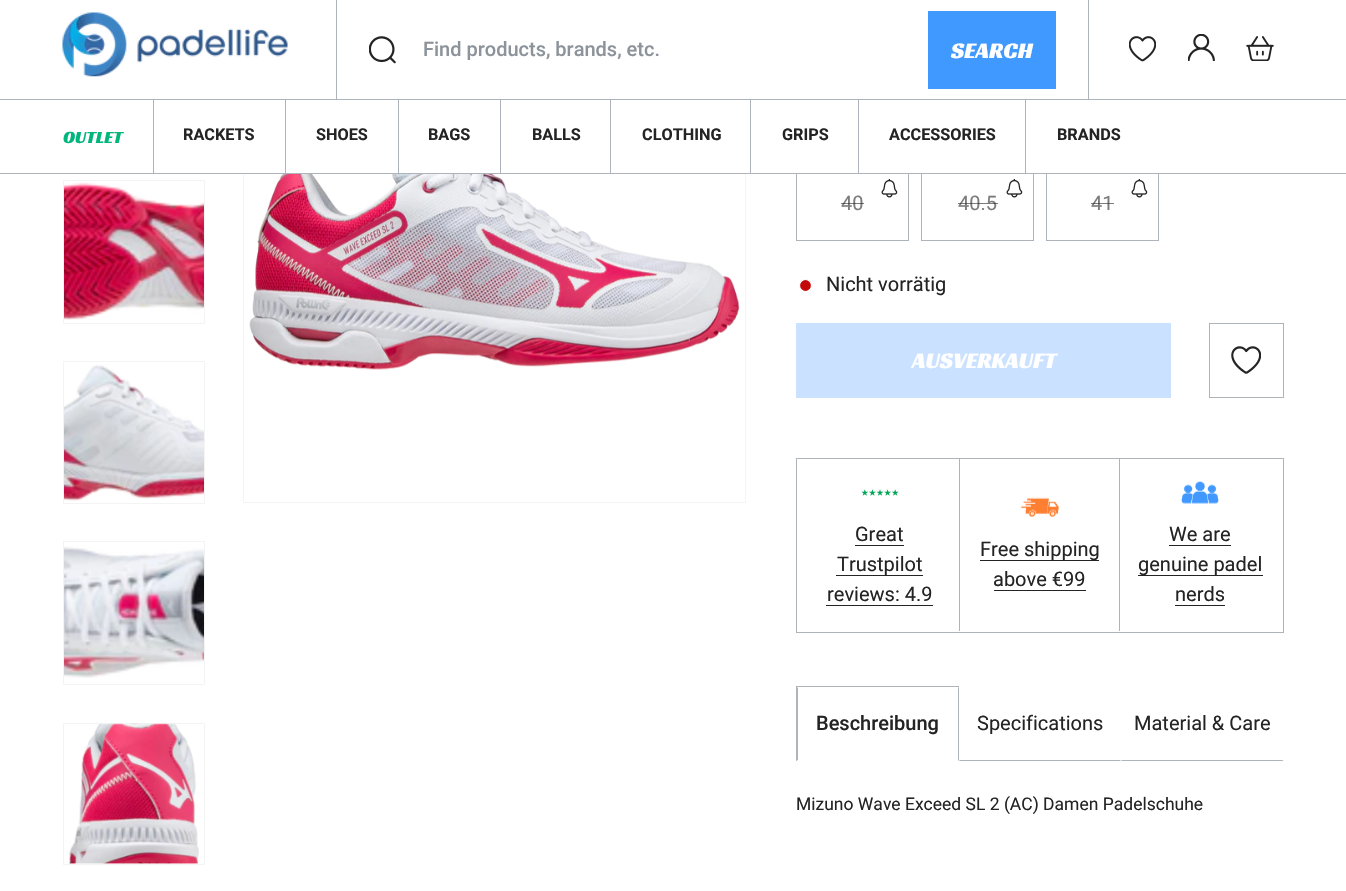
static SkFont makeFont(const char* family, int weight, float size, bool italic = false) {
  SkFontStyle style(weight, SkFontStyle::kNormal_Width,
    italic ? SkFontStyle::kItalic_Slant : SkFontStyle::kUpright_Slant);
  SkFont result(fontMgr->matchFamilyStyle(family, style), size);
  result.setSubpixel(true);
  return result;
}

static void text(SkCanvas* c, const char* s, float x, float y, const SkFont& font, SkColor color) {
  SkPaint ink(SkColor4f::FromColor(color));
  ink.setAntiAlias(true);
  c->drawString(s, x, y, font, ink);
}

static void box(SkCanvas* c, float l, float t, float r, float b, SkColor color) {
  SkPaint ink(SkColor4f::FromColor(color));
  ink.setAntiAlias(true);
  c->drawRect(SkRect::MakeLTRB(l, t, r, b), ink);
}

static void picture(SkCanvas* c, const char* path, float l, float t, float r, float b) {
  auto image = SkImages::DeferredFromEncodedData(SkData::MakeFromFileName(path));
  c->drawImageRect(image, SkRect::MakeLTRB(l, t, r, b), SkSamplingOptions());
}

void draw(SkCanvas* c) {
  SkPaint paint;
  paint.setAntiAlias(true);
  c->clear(0xffffffff);
  paint.setStyle(SkPaint::kStroke_Style);
  paint.setStrokeWidth(1);
  paint.setColor(0xfff4f4f4);
  c->drawRect(SkRect::MakeLTRB(243.5f, 0.5f, 745.5f, 502.5f), paint);
  paint.setColor(0xffadb3bb);
  c->drawRect(SkRect::MakeLTRB(796.5f, 166.5f, 908.5f, 240.5f), paint);
  c->drawRect(SkRect::MakeLTRB(921.5f, 166.5f, 1033.5f, 240.5f), paint);
  c->drawRect(SkRect::MakeLTRB(1046.5f, 166.5f, 1158.5f, 240.5f), paint);
  box(c, 243, 0, 1159, 173, 0xffffffff);
  box(c, 0, 173, 1346, 174, 0xffadb3bb);
  box(c, 0, 99, 1346, 100, 0xffadb3bb);
  picture(c, "img_01.png", 62, 12, 288, 77);
  box(c, 1088, 0, 1089, 99, 0xffadb3bb);
  box(c, 336, 0, 337, 99, 0xffadb3bb);
  picture(c, "img_02.png", 369, 36, 396, 64);
  SkFont face1 = makeFont("Roboto", 500, 20);
  text(c, "Find products, brands, etc.", 423, 56, face1, 0xff8c939b);
  box(c, 928, 11, 1056, 89, 0xff4099ff);
  SkFont face2 = makeFont("Racing Sans One", 400, 22.5f);
  text(c, "SEARCH", 951, 58, face2, 0xffffffff);
  picture(c, "img_03.png", 1129, 36, 1156, 62);
  picture(c, "img_04.png", 1188, 34, 1215, 61);
  picture(c, "img_05.png", 1246, 36, 1274, 61);
  box(c, 153, 100, 154, 173, 0xffadb3bb);
  SkFont face3 = makeFont("Racing Sans One", 400, 17.5f);
  text(c, "OUTLET", 63, 143, face3, 0xff00b67b);
  box(c, 285, 100, 286, 173, 0xffadb3bb);
  SkFont face4 = makeFont("Roboto", 700, 16.25f);
  text(c, "RACKETS", 183, 140, face4, 0xff242424);
  box(c, 398, 100, 399, 173, 0xffadb3bb);
  text(c, "SHOES", 316, 140, face4, 0xff242424);
  box(c, 500, 100, 501, 173, 0xffadb3bb);
  text(c, "BAGS", 428, 140, face4, 0xff242424);
  box(c, 610, 100, 611, 173, 0xffadb3bb);
  text(c, "BALLS", 532, 140, face4, 0xff242424);
  box(c, 750, 100, 751, 173, 0xffadb3bb);
  text(c, "CLOTHING", 642, 140, face4, 0xff242424);
  box(c, 858, 100, 859, 173, 0xffadb3bb);
  text(c, "GRIPS", 782, 140, face4, 0xff242424);
  box(c, 1025, 100, 1026, 173, 0xffadb3bb);
  text(c, "ACCESSORIES", 889, 140, face4, 0xff242424);
  text(c, "BRANDS", 1057, 140, face4, 0xff242424);
  paint.setColor(0xfff4f4f4);
  c->drawRect(SkRect::MakeLTRB(63.5f, 180.5f, 204.5f, 323.5f), paint);
  picture(c, "img_06.png", 64, 182, 204, 320);
  c->drawRect(SkRect::MakeLTRB(63.5f, 361.5f, 204.5f, 503.5f), paint);
  picture(c, "img_07.png", 64, 365, 204, 501);
  c->drawRect(SkRect::MakeLTRB(63.5f, 541.5f, 204.5f, 684.5f), paint);
  picture(c, "img_08.png", 64, 546, 204, 678);
  c->drawRect(SkRect::MakeLTRB(63.5f, 723.5f, 204.5f, 864.5f), paint);
  picture(c, "img_09.png", 68, 723, 199, 864);
  picture(c, "img_10.png", 249, 174, 740, 370);
  picture(c, "img_11.png", 881, 179, 898, 198);
  SkFont face5 = makeFont("Roboto", 400, 20);
  text(c, "40", 841, 210, face5, 0xff7c7c7c);
  box(c, 841, 203, 864, 204, 0x99242424);
  picture(c, "img_11.png", 1006, 179, 1023, 198);
  text(c, "40.5", 958, 210, face5, 0xff7c7c7c);
  box(c, 958, 203, 998, 204, 0x99242424);
  picture(c, "img_11.png", 1131, 179, 1148, 198);
  text(c, "41", 1091, 210, face5, 0xff7c7c7c);
  box(c, 1091, 203, 1114, 204, 0x99242424);
  paint.setStyle(SkPaint::kFill_Style);
  paint.setColor(0xffc40909);
  c->drawCircle(805.5f, 285.5f, 6, paint);
  paint.setStyle(SkPaint::kStroke_Style);
  paint.setStrokeWidth(1.2f);
  paint.setColor(0xffffffff);
  c->drawCircle(805.5f, 285.5f, 6, paint);
  text(c, "Nicht vorrätig", 826, 291, face5, 0xff242424);
  box(c, 796, 323, 1171, 398, 0xffcae2ff);
  text(c, "AUSVERKAUFT", 912, 368, face2, 0xffffffff);
  picture(c, "img_12.png", 1231, 346, 1261, 374);
  paint.setStrokeWidth(1);
  paint.setColor(0xffadb3bb);
  c->drawRect(SkRect::MakeLTRB(1209.5f, 323.5f, 1283.5f, 397.5f), paint);
  c->drawRect(SkRect::MakeLTRB(796.5f, 458.5f, 1283.5f, 632.5f), paint);
  box(c, 959, 459, 960, 631, 0xffadb3bb);
  picture(c, "img_13.png", 861, 489, 899, 496);
  text(c, "Great", 855, 541, face5, 0xff242424);
  box(c, 855, 545, 904, 546, 0xff242424);
  box(c, 836, 575, 923, 576, 0xff242424);
  text(c, "Trustpilot", 837, 571, face5, 0xff242424);
  text(c, "reviews: 4.9", 827, 601, face5, 0xff242424);
  box(c, 826, 605, 933, 606, 0xff242424);
  box(c, 1119, 459, 1120, 631, 0xffadb3bb);
  picture(c, "img_14.png", 1021, 497, 1059, 517);
  box(c, 980, 560, 1099, 561, 0xff242424);
  text(c, "Free shipping", 980, 556, face5, 0xff242424);
  text(c, "above €99", 993, 586, face5, 0xff242424);
  box(c, 994, 590, 1086, 591, 0xff242424);
  picture(c, "img_15.png", 1181, 481, 1219, 504);
  text(c, "We are", 1169, 541, face5, 0xff242424);
  box(c, 1169, 545, 1231, 546, 0xff242424);
  box(c, 1138, 575, 1263, 576, 0xff242424);
  text(c, "genuine padel", 1138, 571, face5, 0xff242424);
  text(c, "nerds", 1175, 601, face5, 0xff242424);
  box(c, 1175, 605, 1225, 606, 0xff242424);
  box(c, 796, 686, 959, 687, 0xffadb3bb);
  paint.setStyle(SkPaint::kFill_Style);
  c->drawPath(SkPathBuilder().moveTo(959, 686).lineTo(959, 761).lineTo(958, 760).lineTo(958, 688).close().detach(), paint);
  c->drawPath(SkPathBuilder().moveTo(796, 761).lineTo(796, 686).lineTo(798, 688).lineTo(798, 760).close().detach(), paint);
  text(c, "Beschreibung", 816, 730, face1, 0xff242424);
  c->drawPath(SkPathBuilder().moveTo(1121, 761).lineTo(959, 761).lineTo(960, 760).lineTo(1120, 760).close().detach(), paint);
  text(c, "Specifications", 977, 730, face5, 0xff242424);
  c->drawPath(SkPathBuilder().moveTo(1284, 761).lineTo(1121, 761).lineTo(1122, 760).lineTo(1282, 760).close().detach(), paint);
  text(c, "Material & Care", 1134, 730, face5, 0xff242424);
  SkFont face6 = makeFont("Roboto", 400, 17.5f);
  text(c, "Mizuno Wave Exceed SL 2 (AC) Damen Padelschuhe", 796, 810, face6, 0xff242424);
}
